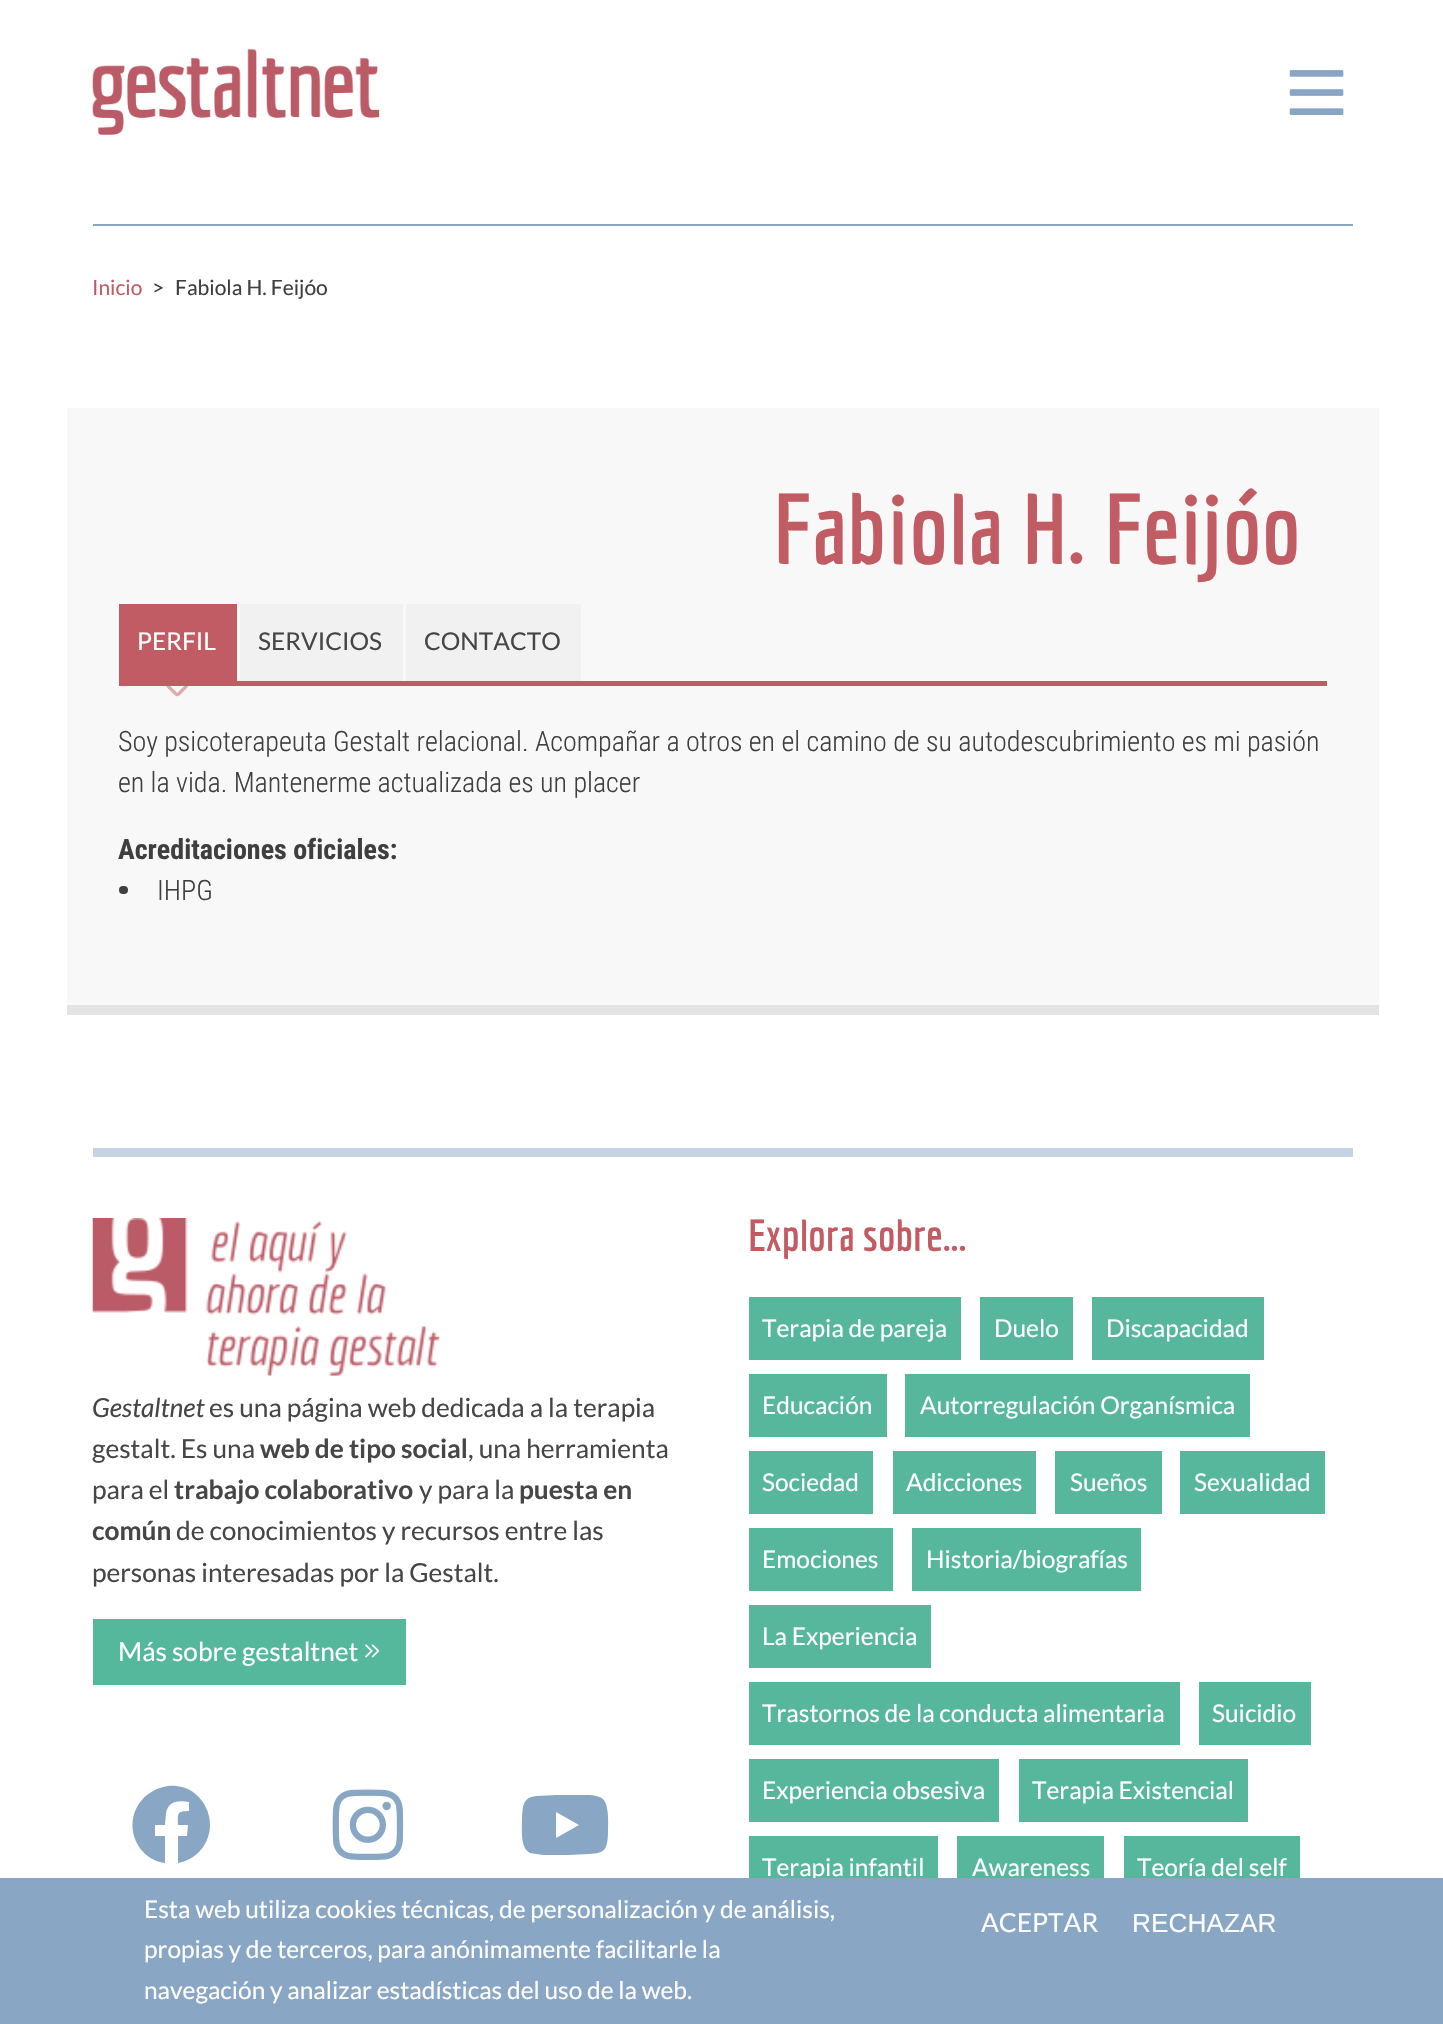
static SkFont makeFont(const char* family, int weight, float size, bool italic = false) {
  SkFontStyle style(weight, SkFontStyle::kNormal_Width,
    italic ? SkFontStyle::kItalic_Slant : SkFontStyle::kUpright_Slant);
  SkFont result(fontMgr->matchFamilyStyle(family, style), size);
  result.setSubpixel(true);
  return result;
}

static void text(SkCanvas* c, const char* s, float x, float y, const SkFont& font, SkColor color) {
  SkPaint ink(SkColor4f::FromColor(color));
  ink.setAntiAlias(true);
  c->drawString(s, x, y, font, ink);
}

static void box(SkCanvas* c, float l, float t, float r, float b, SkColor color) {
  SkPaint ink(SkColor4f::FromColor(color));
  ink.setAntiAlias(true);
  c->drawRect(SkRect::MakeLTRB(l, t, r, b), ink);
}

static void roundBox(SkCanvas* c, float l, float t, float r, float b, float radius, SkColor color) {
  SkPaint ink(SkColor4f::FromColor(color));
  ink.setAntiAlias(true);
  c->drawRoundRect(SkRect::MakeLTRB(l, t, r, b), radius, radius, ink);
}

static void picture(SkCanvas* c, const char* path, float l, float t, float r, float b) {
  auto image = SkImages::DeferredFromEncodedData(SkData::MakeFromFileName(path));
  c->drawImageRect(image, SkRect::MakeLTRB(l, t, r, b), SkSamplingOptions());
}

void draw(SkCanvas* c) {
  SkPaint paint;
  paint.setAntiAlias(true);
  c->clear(0xffffffff);
  picture(c, "img_01.png", 92, 48, 380, 135);
  picture(c, "img_02.png", 1289, 70, 1344, 115);
  box(c, 93, 224, 1353, 226, 0xff89a6c5);
  box(c, 93, 1148, 1353, 1157, 0xffc5d3e3);
  SkFont face1 = makeFont("Lato", 400, 21);
  text(c, "Inicio", 92, 295, face1, 0xffc25c64);
  text(c, ">", 152, 295, face1, 0xff3f3f3f);
  text(c, "Fabiola H. Feijóo", 175, 295, face1, 0xff3f3f3f);
  box(c, 67, 408, 1379, 1005, 0xfff8f8f8);
  box(c, 67, 1005, 1379, 1015, 0xffe4e4e4);
  SkFont face2 = makeFont("Economica", 700, 98);
  text(c, "Fabiola H. Feijóo", 773, 564, face2, 0xffc25c64);
  box(c, 119, 681, 1327, 686, 0xffc25c64);
  box(c, 121, 606, 235, 676, 0xffc25c64);
  box(c, 119, 604, 236, 606, 0xffc25c64);
  box(c, 235, 604, 237, 681, 0xffc25c64);
  box(c, 119, 676, 236, 681, 0xffc25c64);
  box(c, 119, 604, 121, 681, 0xffc25c64);
  SkFont face3 = makeFont("Lato", 400, 24.5f);
  text(c, "PERFIL", 137, 650, face3, 0xffffffff);
  picture(c, "img_03.png", 166, 686, 188, 697);
  box(c, 242, 606, 401, 676, 0xfff2f1f1);
  box(c, 240, 604, 403, 606, 0xfff2f1f1);
  box(c, 401, 604, 403, 681, 0xfff2f1f1);
  box(c, 240, 676, 403, 681, 0xfff2f1f1);
  box(c, 240, 604, 242, 681, 0xfff2f1f1);
  text(c, "SERVICIOS", 258, 650, face3, 0xff464646);
  box(c, 408, 606, 579, 676, 0xfff2f1f1);
  box(c, 406, 604, 581, 606, 0xfff2f1f1);
  box(c, 579, 604, 581, 681, 0xfff2f1f1);
  box(c, 406, 676, 581, 681, 0xfff2f1f1);
  box(c, 406, 604, 408, 681, 0xfff2f1f1);
  text(c, "CONTACTO", 424, 650, face3, 0xff464646);
  SkFont face4 = makeFont("Roboto Condensed", 300, 28);
  text(c, "Soy psicoterapeuta Gestalt relacional. Acompañar a otros en el camino de su autodescubrimiento es mi pasión", 118, 751, face4, 0xff3f3f3f);
  text(c, "en la vida. Mantenerme actualizada es un placer", 118, 792, face4, 0xff3f3f3f);
  SkFont face5 = makeFont("Roboto Condensed", 700, 28);
  text(c, "Acreditaciones oficiales:", 118, 859, face5, 0xff3f3f3f);
  roundBox(c, 119, 886, 128, 894, 4, 0xff3f3f3f);
  text(c, "IHPG", 157, 900, face4, 0xff3f3f3f);
  picture(c, "img_04.png", 92, 1218, 440, 1376);
  SkFont face6 = makeFont("Lato", 400, 26.25f, true);
  text(c, "Gestaltnet", 92, 1417, face6, 0xff464646);
  SkFont face7 = makeFont("Lato", 400, 26.25f);
  text(c, "es una página web dedicada a la terapia", 209, 1417, face7, 0xff464646);
  text(c, "gestalt. Es una", 92, 1458, face7, 0xff464646);
  SkFont face8 = makeFont("Lato", 700, 26.25f);
  text(c, "web de tipo social", 260, 1458, face8, 0xff464646);
  text(c, ", una herramienta", 468, 1458, face7, 0xff464646);
  text(c, "para el", 92, 1499, face7, 0xff464646);
  text(c, "trabajo colaborativo", 174, 1499, face8, 0xff464646);
  text(c, "y para la", 419, 1499, face7, 0xff464646);
  text(c, "puesta en", 519, 1499, face8, 0xff464646);
  text(c, "común", 92, 1540, face8, 0xff464646);
  text(c, "de conocimientos y recursos entre las", 176, 1540, face7, 0xff464646);
  text(c, "personas interesadas por la Gestalt.", 92, 1582, face7, 0xff464646);
  box(c, 93, 1619, 406, 1685, 0xff55b79c);
  text(c, "Más sobre gestaltnet", 118, 1661, face7, 0xffffffff);
  picture(c, "img_05.png", 365, 1644, 380, 1658);
  paint.setColor(0xff89a6c5);
  c->drawPath(SkPathBuilder().moveTo(210, 1825).cubicTo(210, 1844, 196, 1860, 178, 1863).lineTo(178, 1836).lineTo(187, 1836).lineTo(188, 1825).lineTo(178, 1825).cubicTo(178, 1814, 176, 1811, 189, 1811).lineTo(189, 1802).cubicTo(179, 1800, 168, 1801, 166, 1813).lineTo(165, 1825).lineTo(155, 1825).lineTo(155, 1836).lineTo(165, 1836).lineTo(165, 1863).cubicTo(132, 1858, 121, 1816, 147, 1795).cubicTo(153, 1790, 160, 1787, 168, 1786).cubicTo(176, 1785, 186, 1787, 193, 1792).cubicTo(204, 1800, 210, 1812, 210, 1825).close().detach(), paint);
  picture(c, "img_06.png", 332, 1789, 404, 1860);
  c->drawPath(SkPathBuilder().moveTo(606, 1804).cubicTo(609, 1814, 608, 1825, 608, 1834).cubicTo(607, 1850, 605, 1853, 589, 1854).lineTo(568, 1855).lineTo(543, 1855).cubicTo(539, 1854, 534, 1854, 530, 1853).cubicTo(527, 1851, 525, 1849, 524, 1846).cubicTo(521, 1838, 522, 1826, 522, 1818).cubicTo(523, 1805, 523, 1797, 537, 1796).lineTo(556, 1795).lineTo(582, 1795).cubicTo(590, 1795, 603, 1794, 606, 1804).close().moveTo(556, 1838).lineTo(579, 1825).lineTo(556, 1812).close().detach(), paint);
  SkFont face9 = makeFont("Economica", 700, 43.75f);
  text(c, "Explora sobre...", 748, 1251, face9, 0xffc25c64);
  box(c, 749, 1297, 961, 1360, 0xff56b79c);
  text(c, "Terapia de pareja", 762, 1337, face3, 0xffffffff);
  box(c, 980, 1297, 1073, 1360, 0xff56b79c);
  text(c, "Duelo", 994, 1337, face3, 0xffffffff);
  box(c, 1092, 1297, 1264, 1360, 0xff56b79c);
  text(c, "Discapacidad", 1106, 1337, face3, 0xffffffff);
  box(c, 749, 1374, 887, 1437, 0xff56b79c);
  text(c, "Educación", 762, 1414, face3, 0xffffffff);
  box(c, 905, 1374, 1250, 1437, 0xff56b79c);
  text(c, "Autorregulación Organísmica", 920, 1414, face3, 0xffffffff);
  box(c, 749, 1451, 873, 1514, 0xff56b79c);
  text(c, "Sociedad", 762, 1491, face3, 0xffffffff);
  box(c, 893, 1451, 1036, 1514, 0xff56b79c);
  text(c, "Adicciones", 906, 1491, face3, 0xffffffff);
  box(c, 1055, 1451, 1162, 1514, 0xff56b79c);
  text(c, "Sueños", 1070, 1491, face3, 0xffffffff);
  box(c, 1180, 1451, 1325, 1514, 0xff56b79c);
  text(c, "Sexualidad", 1194, 1491, face3, 0xffffffff);
  box(c, 749, 1528, 893, 1591, 0xff56b79c);
  text(c, "Emociones", 762, 1568, face3, 0xffffffff);
  box(c, 912, 1528, 1141, 1591, 0xff56b79c);
  text(c, "Historia/biografías", 926, 1568, face3, 0xffffffff);
  box(c, 749, 1605, 931, 1668, 0xff56b79c);
  text(c, "La Experiencia", 762, 1645, face3, 0xffffffff);
  box(c, 749, 1682, 1180, 1745, 0xff56b79c);
  text(c, "Trastornos de la conducta alimentaria", 762, 1722, face3, 0xffffffff);
  box(c, 1199, 1682, 1311, 1745, 0xff56b79c);
  text(c, "Suicidio", 1212, 1722, face3, 0xffffffff);
  box(c, 749, 1759, 999, 1822, 0xff56b79c);
  text(c, "Experiencia obsesiva", 762, 1799, face3, 0xffffffff);
  box(c, 1019, 1759, 1248, 1822, 0xff56b79c);
  text(c, "Terapia Existencial", 1032, 1799, face3, 0xffffffff);
  box(c, 749, 1836, 938, 1878, 0xff56b79c);
  text(c, "Terapia infantil", 762, 1876, face3, 0xffffffff);
  box(c, 957, 1836, 1104, 1878, 0xff56b79c);
  text(c, "Awareness", 972, 1876, face3, 0xffffffff);
  box(c, 1124, 1836, 1300, 1878, 0xff56b79c);
  text(c, "Teoría del self", 1137, 1876, face3, 0xffffffff);
  box(c, 0, 1878, 1443, 2024, 0xff89a6c5);
  text(c, "Esta web utiliza cookies técnicas, de personalización y de análisis,", 144, 1918, face3, 0xffffffff);
  text(c, "propias y de terceros, para anónimamente facilitarle la", 144, 1958, face3, 0xffffffff);
  text(c, "navegación y analizar estadísticas del uso de la web.", 144, 1999, face3, 0xffffffff);
  text(c, "ACEPTAR", 981, 1932, face7, 0xffffffff);
  SkFont face10 = makeFont("Liberation Sans", 400, 26.25f);
  text(c, "RECHAZAR", 1132, 1932, face10, 0xffffffff);
}
